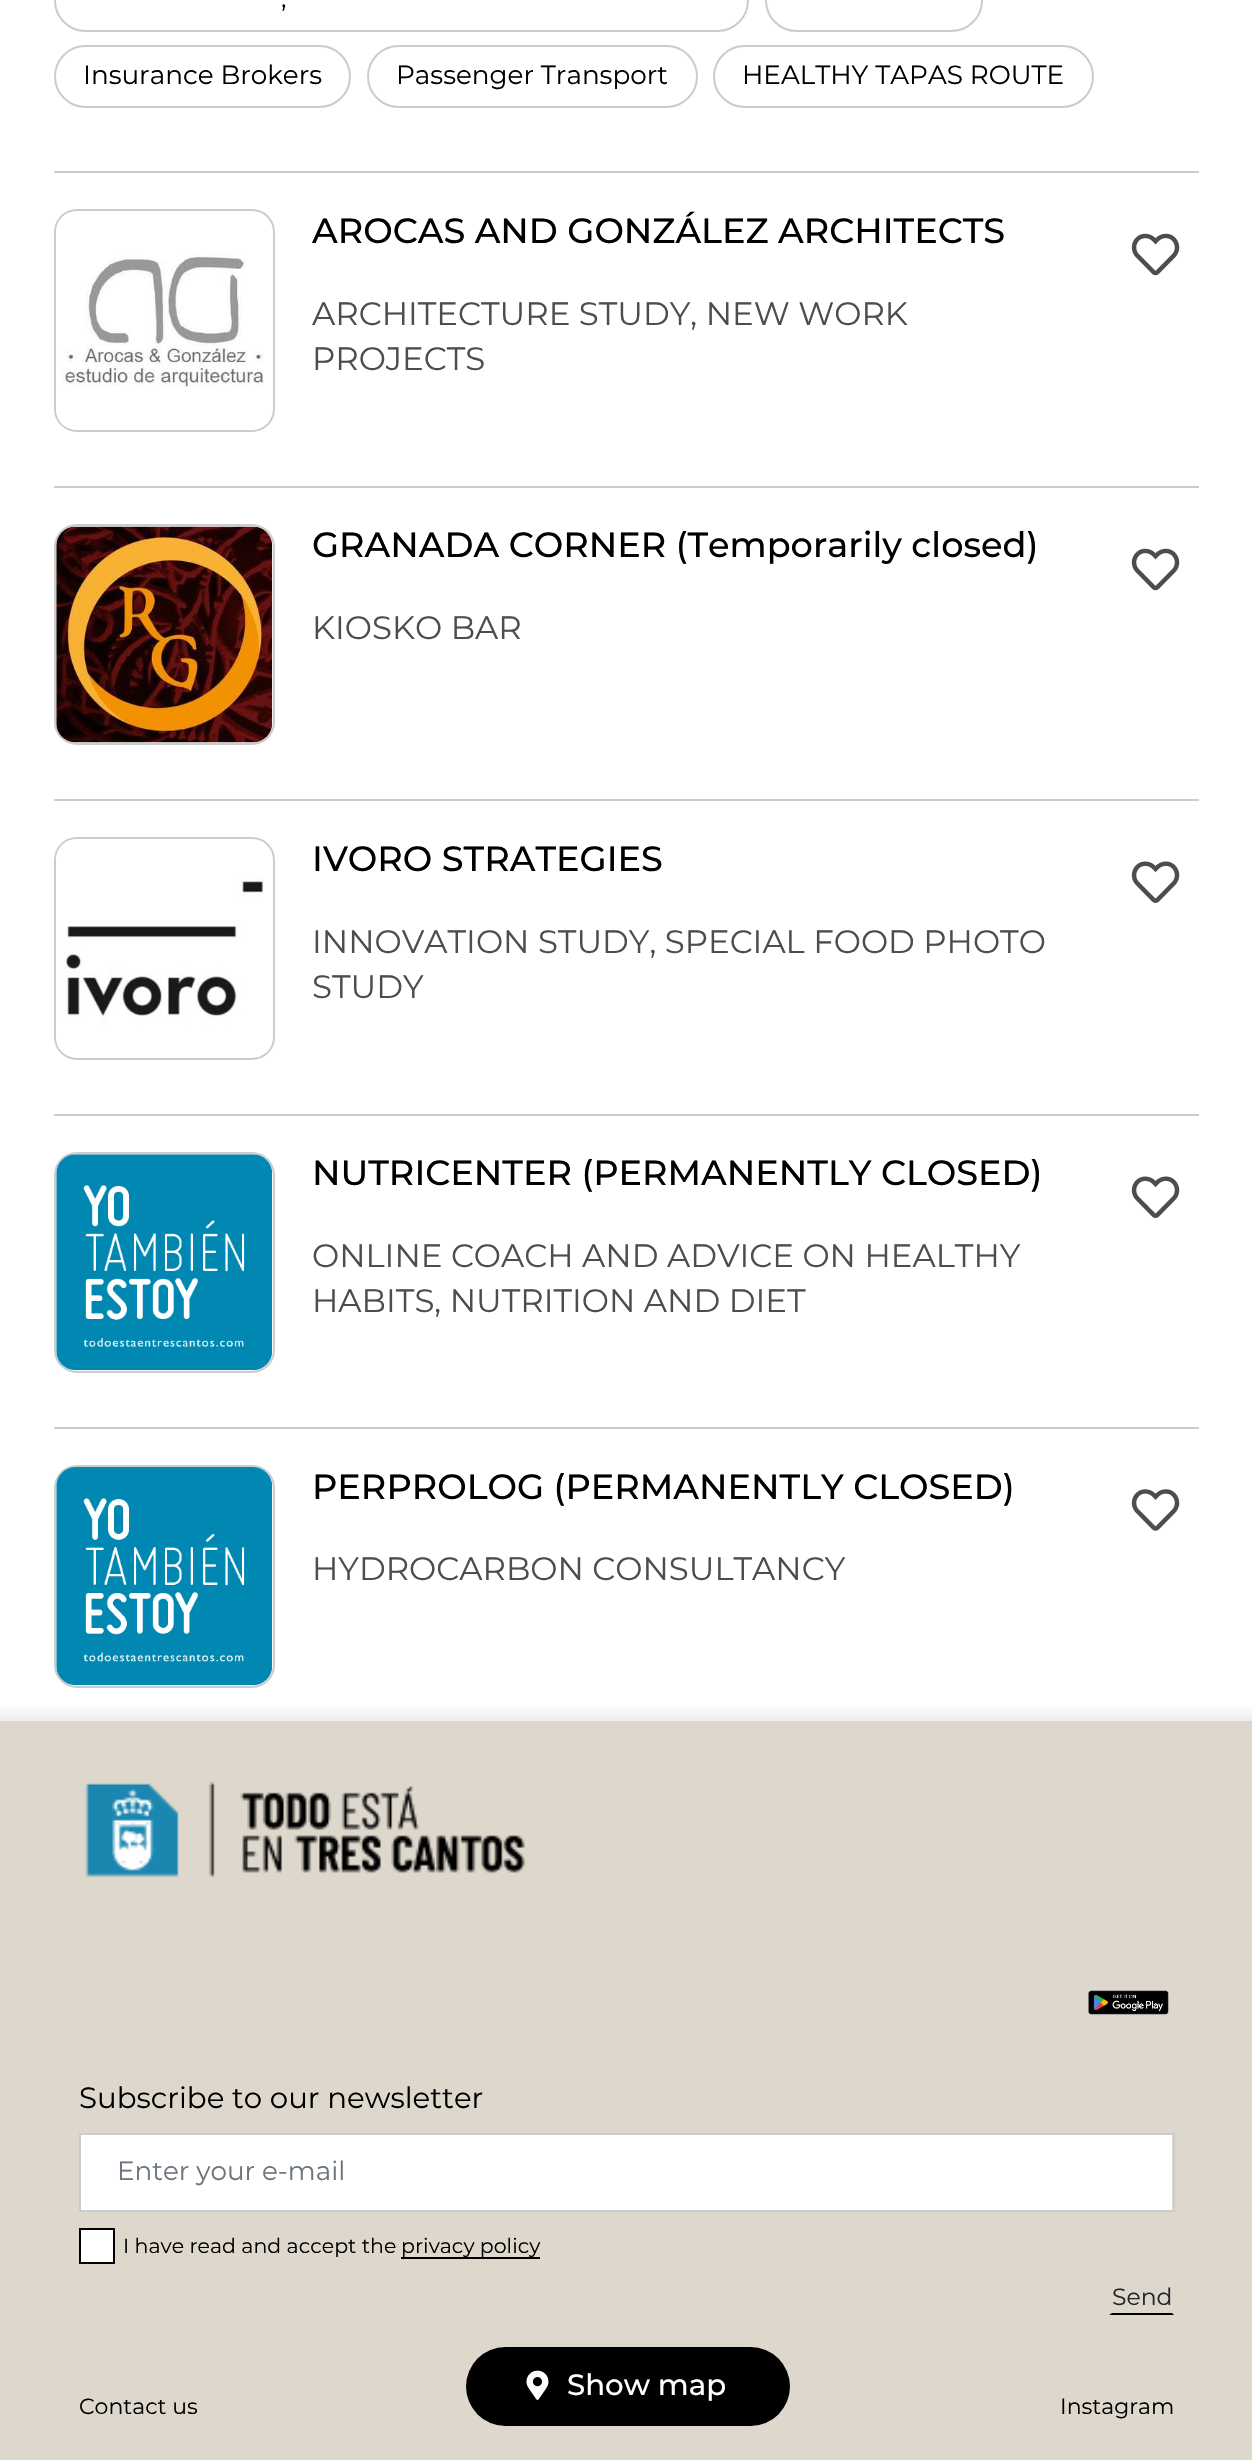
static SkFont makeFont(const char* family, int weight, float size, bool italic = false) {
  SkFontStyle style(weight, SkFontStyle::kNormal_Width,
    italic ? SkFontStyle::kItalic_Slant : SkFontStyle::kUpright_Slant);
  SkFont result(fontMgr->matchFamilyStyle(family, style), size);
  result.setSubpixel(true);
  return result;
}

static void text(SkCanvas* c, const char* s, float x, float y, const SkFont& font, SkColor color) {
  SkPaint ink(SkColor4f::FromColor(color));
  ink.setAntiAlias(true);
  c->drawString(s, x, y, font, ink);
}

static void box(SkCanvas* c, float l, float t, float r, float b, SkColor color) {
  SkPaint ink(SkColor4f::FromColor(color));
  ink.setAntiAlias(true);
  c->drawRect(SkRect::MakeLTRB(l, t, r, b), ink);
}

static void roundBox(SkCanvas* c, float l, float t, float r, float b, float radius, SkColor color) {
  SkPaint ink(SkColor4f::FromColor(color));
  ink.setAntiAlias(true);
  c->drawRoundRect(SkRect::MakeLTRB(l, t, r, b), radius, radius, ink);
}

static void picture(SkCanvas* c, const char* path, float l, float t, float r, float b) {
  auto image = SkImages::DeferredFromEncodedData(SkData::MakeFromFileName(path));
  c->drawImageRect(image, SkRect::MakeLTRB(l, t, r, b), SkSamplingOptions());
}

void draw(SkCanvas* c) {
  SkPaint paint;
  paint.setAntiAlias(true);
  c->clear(0xffffffff);
  box(c, 54, 171, 1199, 173, 0xffcccccc);
  paint.setStyle(SkPaint::kStroke_Style);
  paint.setStrokeWidth(2);
  paint.setColor(0xffcccccc);
  c->drawRoundRect(SkRect::MakeLTRB(55, -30, 748, 31), 30.5f, 30.5f, paint);
  SkFont face1 = makeFont("Montserrat", 400, 26.25f);
  text(c, ",", 281, 7, face1, 0xff000000);
  c->drawRoundRect(SkRect::MakeLTRB(766, -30, 982, 31), 30.5f, 30.5f, paint);
  c->drawRoundRect(SkRect::MakeLTRB(55, 46, 350, 107), 30.5f, 30.5f, paint);
  text(c, "Insurance Brokers", 83, 84, face1, 0xff000000);
  c->drawRoundRect(SkRect::MakeLTRB(368, 46, 697, 107), 30.5f, 30.5f, paint);
  text(c, "Passenger Transport", 396, 84, face1, 0xff000000);
  c->drawRoundRect(SkRect::MakeLTRB(714, 46, 1093, 107), 30.5f, 30.5f, paint);
  text(c, "HEALTHY TAPAS ROUTE", 742, 84, face1, 0xff000000);
  box(c, 54, 486, 1199, 488, 0xffcccccc);
  c->drawRoundRect(SkRect::MakeLTRB(55, 210, 274, 431), 22, 22, paint);
  picture(c, "img_01.png", 56, 212, 271, 430);
  SkFont face2 = makeFont("Montserrat", 500, 35.1f);
  text(c, "AROCAS AND GONZÁLEZ ARCHITECTS", 312, 243, face2, 0xff000000);
  SkFont face3 = makeFont("Montserrat", 400, 32.4f);
  text(c, "ARCHITECTURE STUDY, NEW WORK", 312, 325, face3, 0xff4d4d4d);
  text(c, "PROJECTS", 312, 370, face3, 0xff4d4d4d);
  picture(c, "img_02.png", 1131, 233, 1180, 276);
  box(c, 54, 799, 1199, 801, 0xffcccccc);
  c->drawRoundRect(SkRect::MakeLTRB(55, 525, 274, 744), 22, 22, paint);
  picture(c, "img_03.png", 56, 526, 273, 743);
  text(c, "GRANADA CORNER (Temporarily closed)", 312, 557, face2, 0xff000000);
  text(c, "KIOSKO BAR", 312, 639, face3, 0xff4d4d4d);
  picture(c, "img_02.png", 1131, 548, 1180, 591);
  box(c, 54, 1114, 1199, 1116, 0xffcccccc);
  c->drawRoundRect(SkRect::MakeLTRB(55, 838, 274, 1059), 22, 22, paint);
  picture(c, "img_04.png", 56, 839, 271, 1057);
  text(c, "IVORO STRATEGIES", 312, 871, face2, 0xff000000);
  text(c, "INNOVATION STUDY, SPECIAL FOOD PHOTO", 312, 953, face3, 0xff4d4d4d);
  text(c, "STUDY", 312, 998, face3, 0xff4d4d4d);
  picture(c, "img_05.png", 1131, 861, 1180, 903);
  box(c, 54, 1427, 1199, 1429, 0xffcccccc);
  c->drawRoundRect(SkRect::MakeLTRB(55, 1153, 274, 1372), 22, 22, paint);
  picture(c, "img_06.png", 56, 1154, 273, 1371);
  text(c, "NUTRICENTER (PERMANENTLY CLOSED)", 312, 1185, face2, 0xff000000);
  text(c, "ONLINE COACH AND ADVICE ON HEALTHY", 312, 1267, face3, 0xff4d4d4d);
  text(c, "HABITS, NUTRITION AND DIET", 312, 1312, face3, 0xff4d4d4d);
  picture(c, "img_05.png", 1131, 1176, 1180, 1218);
  c->drawRoundRect(SkRect::MakeLTRB(55, 1466, 274, 1687), 22, 22, paint);
  picture(c, "img_07.png", 56, 1467, 273, 1686);
  text(c, "PERPROLOG (PERMANENTLY CLOSED)", 312, 1499, face2, 0xff000000);
  text(c, "HYDROCARBON CONSULTANCY", 312, 1580, face3, 0xff4d4d4d);
  picture(c, "img_08.png", 1131, 1489, 1180, 1531);
  paint.setStyle(SkPaint::kFill_Style);
  {
    const SkColor colors[] = {0xffffffff, 0xffededed};
    const float stops[] = {0, 1};
    const SkPoint ends[] = {{627, 1703}, {627, 1721}};
    paint.setShader(SkGradientShader::MakeLinear(ends, colors, stops, 2, SkTileMode::kClamp));
    paint.setAlpha(255);
  }
  c->drawRect(SkRect::MakeLTRB(0, 1706, 1252, 1721), paint);
  box(c, 0, 1721, 1252, 2460, 0xffded7cc);
  roundBox(c, 466, 2347, 790, 2426, 39.5f, 0xff000000);
  picture(c, "img_09.png", 526, 2370, 549, 2400);
  SkFont face4 = makeFont("Montserrat", 500, 29.25f);
  text(c, "Show map", 567, 2395, face4, 0xffffffff);
  picture(c, "img_10.png", 85, 1781, 525, 1878);
  picture(c, "img_11.png", 1088, 1990, 1169, 2015);
  SkFont face5 = makeFont("Montserrat", 400, 29.25f);
  text(c, "Subscribe to our newsletter", 79, 2108, face5, 0xff000000);
  box(c, 81, 2135, 1172, 2210, 0xffffffff);
  paint.setStyle(SkPaint::kStroke_Style);
  paint.setShader(nullptr);
  paint.setColor(0xffcccccc);
  c->drawRect(SkRect::MakeLTRB(80, 2134, 1174, 2211), paint);
  text(c, "Enter your e-mail", 117, 2180, face1, 0xff6c757d);
  paint.setStyle(SkPaint::kFill_Style);
  paint.setColor(0xffffffff);
  c->drawRect(SkRect::MakeLTRB(80, 2229, 114, 2263), paint);
  paint.setStyle(SkPaint::kStroke_Style);
  paint.setColor(0xff000000);
  c->drawRect(SkRect::MakeLTRB(80, 2229, 114, 2263), paint);
  SkFont face6 = makeFont("Montserrat", 400, 20.5f);
  text(c, "I have read and accept the", 123, 2253, face6, 0xff000000);
  box(c, 401, 2257, 540, 2259, 0xff000000);
  text(c, "privacy policy", 401, 2253, face6, 0xff000000);
  paint.setStyle(SkPaint::kFill_Style);
  c->drawPath(SkPathBuilder().moveTo(1174, 2315).lineTo(1109, 2315).lineTo(1112, 2313).lineTo(1172, 2313).close().detach(), paint);
  SkFont face7 = makeFont("Montserrat", 400, 23.5f);
  text(c, "Send", 1112, 2305, face7, 0xff212529);
  SkFont face8 = makeFont("Montserrat", 400, 22);
  text(c, "Contact us", 79, 2414, face8, 0xff000000);
  text(c, "Instagram", 1060, 2414, face8, 0xff000000);
}
